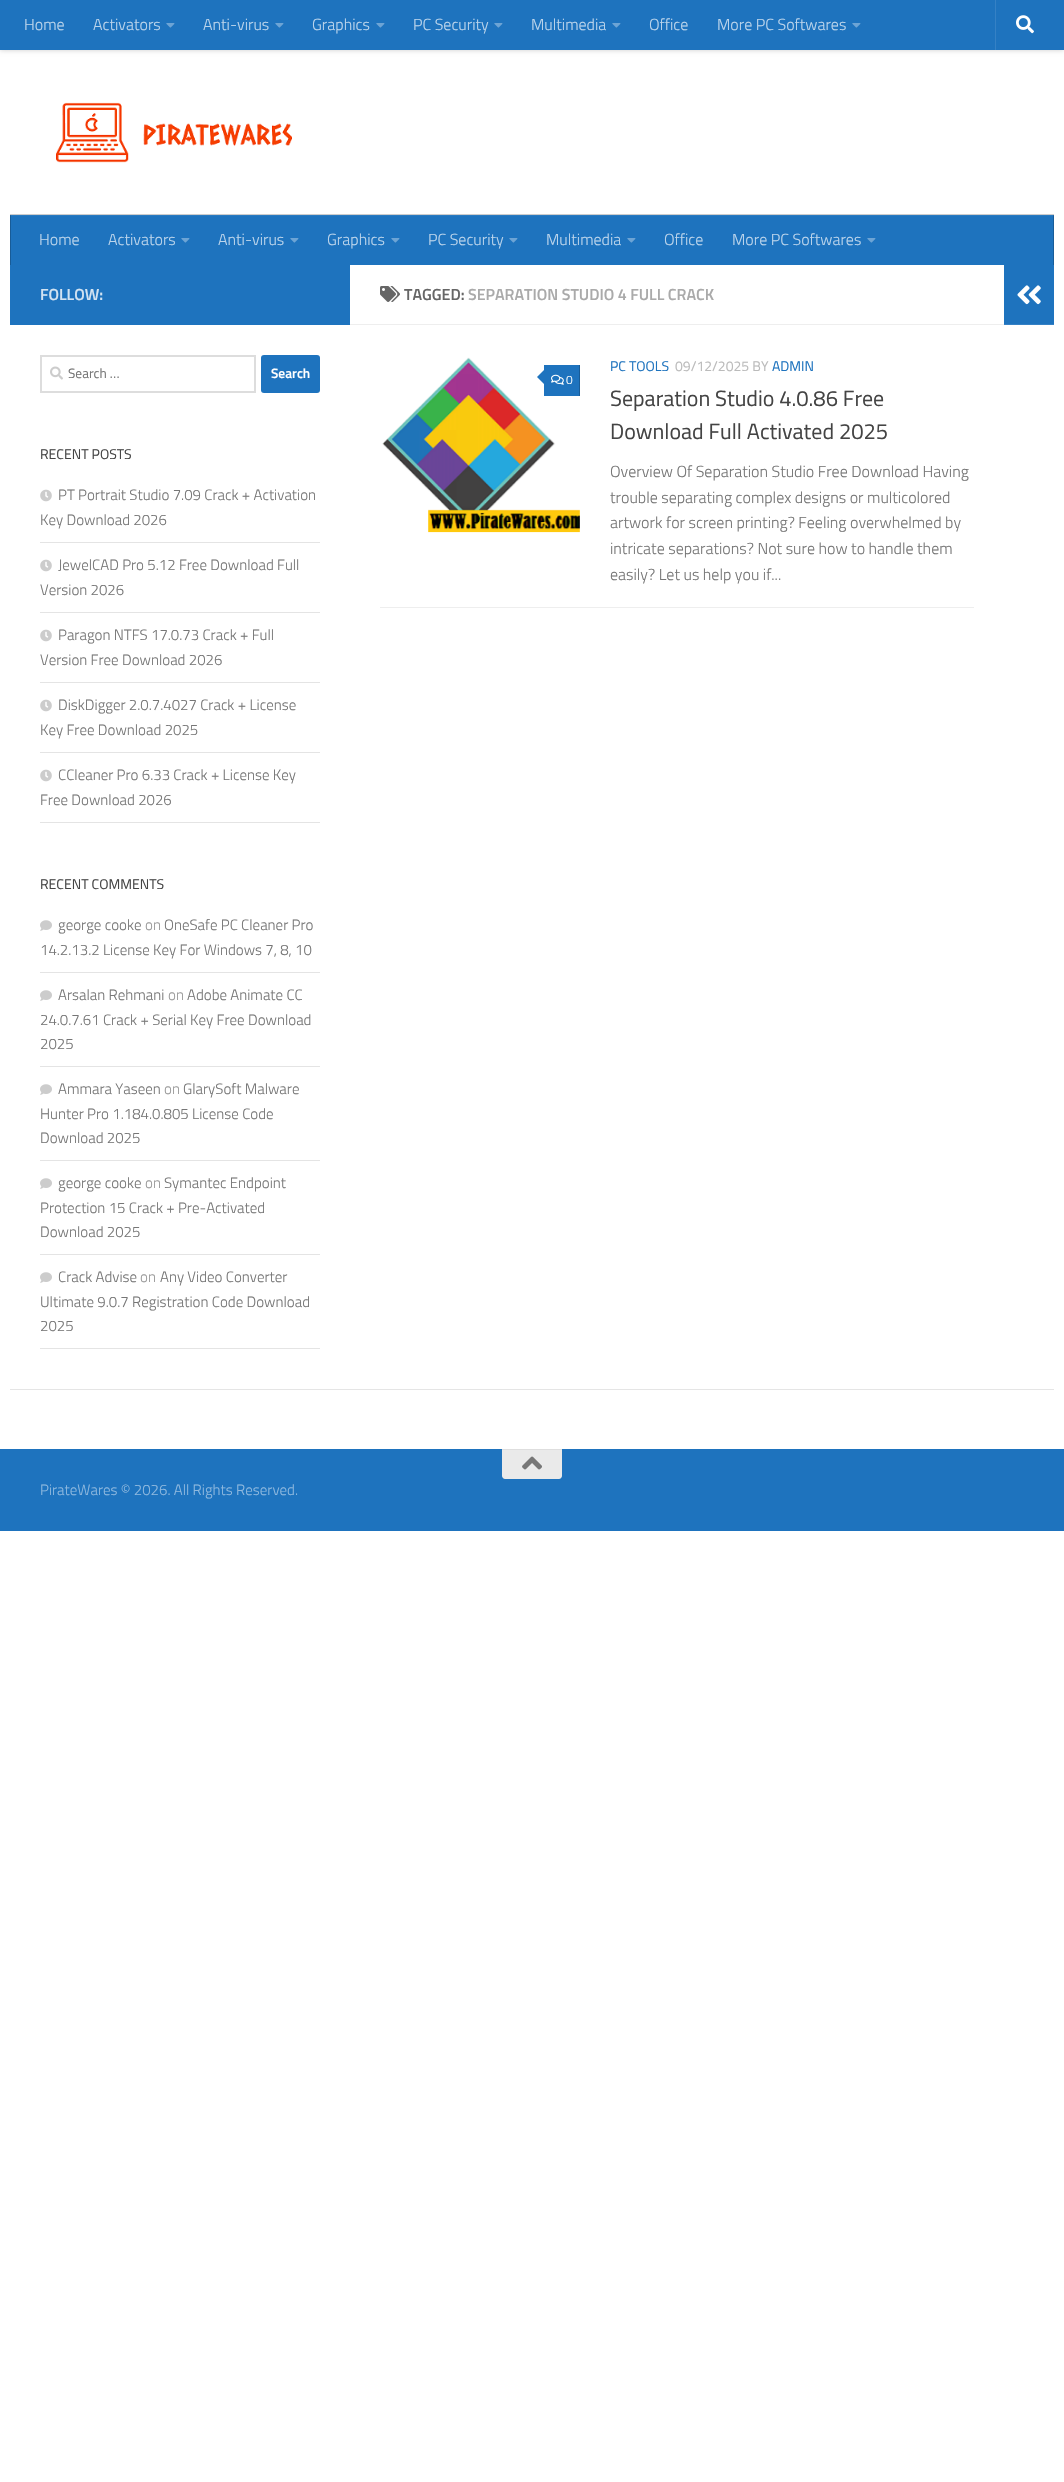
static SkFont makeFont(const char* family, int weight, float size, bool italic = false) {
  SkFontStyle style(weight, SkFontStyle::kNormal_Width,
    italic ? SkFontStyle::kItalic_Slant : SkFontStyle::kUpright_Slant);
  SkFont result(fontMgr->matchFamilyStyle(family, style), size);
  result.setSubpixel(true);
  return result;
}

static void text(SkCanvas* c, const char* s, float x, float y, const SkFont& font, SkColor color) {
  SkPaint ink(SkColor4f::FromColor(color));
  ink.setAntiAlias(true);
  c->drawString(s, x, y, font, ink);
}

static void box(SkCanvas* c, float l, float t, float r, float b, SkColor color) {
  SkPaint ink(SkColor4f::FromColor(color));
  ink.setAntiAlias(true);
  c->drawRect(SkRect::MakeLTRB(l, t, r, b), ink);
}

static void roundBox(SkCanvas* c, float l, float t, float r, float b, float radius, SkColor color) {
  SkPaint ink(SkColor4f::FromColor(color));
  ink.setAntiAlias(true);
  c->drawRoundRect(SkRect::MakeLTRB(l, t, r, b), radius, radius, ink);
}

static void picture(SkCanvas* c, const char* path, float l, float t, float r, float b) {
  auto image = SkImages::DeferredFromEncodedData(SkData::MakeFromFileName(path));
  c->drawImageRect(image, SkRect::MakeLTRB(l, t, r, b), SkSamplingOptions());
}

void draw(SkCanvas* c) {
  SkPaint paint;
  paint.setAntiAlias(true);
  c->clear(0xffffffff);
  c->save();
  c->clipRect(SkRect::MakeLTRB(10, 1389, 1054, 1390));
  paint.setColor(0x1a000000);
  paint.setMaskFilter(SkMaskFilter::MakeBlur(kNormal_SkBlurStyle, 0.5f));
  c->drawRect(SkRect::MakeLTRB(10, 266, 1054, 1390), paint);
  paint.setMaskFilter(nullptr);
  c->restore();
  box(c, 9, 267, 1055, 325, 0xffffffff);
  paint.setColor(0x33000000);
  paint.setMaskFilter(SkMaskFilter::MakeBlur(kNormal_SkBlurStyle, 2.5f));
  c->drawRect(SkRect::MakeLTRB(0, 0, 1064, 50), paint);
  paint.setMaskFilter(nullptr);
  box(c, 0, 0, 1064, 50, 0xff1e73be);
  SkFont face1 = makeFont("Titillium", 300, 16);
  text(c, "Home", 24, 30, face1, 0xffbcd5ec);
  text(c, "Activators", 93, 30, face1, 0xffbcd5ec);
  picture(c, "img_01.png", 166, 23, 175, 28);
  text(c, "Anti-virus", 203, 30, face1, 0xffbcd5ec);
  picture(c, "img_01.png", 275, 23, 284, 28);
  text(c, "Graphics", 312, 30, face1, 0xffbcd5ec);
  picture(c, "img_01.png", 376, 23, 385, 28);
  text(c, "PC Security", 413, 30, face1, 0xffbcd5ec);
  picture(c, "img_01.png", 494, 23, 503, 28);
  text(c, "Multimedia", 531, 30, face1, 0xffbcd5ec);
  picture(c, "img_01.png", 612, 23, 621, 28);
  text(c, "Office", 649, 30, face1, 0xffbcd5ec);
  text(c, "More PC Softwares", 717, 30, face1, 0xffbcd5ec);
  picture(c, "img_01.png", 852, 23, 861, 28);
  box(c, 995, 0, 996, 50, 0xff3581c5);
  picture(c, "img_02.png", 1016, 15, 1034, 34);
  picture(c, "img_03.png", 56, 102, 292, 163);
  box(c, 10, 214, 1054, 215, 0xffcccccc);
  box(c, 11, 216, 1053, 265, 0xff1e73be);
  box(c, 10, 215, 1054, 216, 0xff297ac1);
  box(c, 1053, 215, 1054, 265, 0xff185c98);
  box(c, 1053, 215, 1054, 216, 0xff24649d);
  box(c, 10, 215, 11, 265, 0xff185c98);
  box(c, 10, 215, 11, 216, 0xff24649d);
  text(c, "Home", 39, 245, face1, 0xffbcd5ec);
  text(c, "Activators", 108, 245, face1, 0xffbcd5ec);
  picture(c, "img_01.png", 181, 238, 190, 243);
  text(c, "Anti-virus", 218, 245, face1, 0xffbcd5ec);
  picture(c, "img_01.png", 290, 238, 299, 243);
  text(c, "Graphics", 327, 245, face1, 0xffbcd5ec);
  picture(c, "img_01.png", 391, 238, 400, 243);
  text(c, "PC Security", 428, 245, face1, 0xffbcd5ec);
  picture(c, "img_01.png", 509, 238, 518, 243);
  text(c, "Multimedia", 546, 245, face1, 0xffbcd5ec);
  picture(c, "img_01.png", 627, 238, 636, 243);
  text(c, "Office", 664, 245, face1, 0xffbcd5ec);
  text(c, "More PC Softwares", 732, 245, face1, 0xffbcd5ec);
  picture(c, "img_01.png", 867, 238, 876, 243);
  box(c, 10, 265, 350, 325, 0xff1e73be);
  SkFont face2 = makeFont("Titillium", 600, 16);
  text(c, "FOLLOW:", 40, 300, face2, 0xffd2e3f2);
  paint.setStyle(SkPaint::kStroke_Style);
  paint.setStrokeWidth(2);
  paint.setColor(0xffdddddd);
  c->drawRect(SkRect::MakeLTRB(41, 356, 255, 392), paint);
  picture(c, "img_04.png", 50, 366, 63, 380);
  SkFont face3 = makeFont("Titillium", 400, 13.5f);
  text(c, "Search …", 68, 378, face3, 0xff767676);
  roundBox(c, 261, 355, 320, 393, 3, 0xff1e73be);
  SkFont face4 = makeFont("Titillium", 600, 13.5f);
  text(c, "Search", 271, 378, face4, 0xffffffff);
  SkFont face5 = makeFont("Titillium", 400, 14);
  text(c, "RECENT POSTS", 40, 459, face5, 0xff444444);
  box(c, 40, 542, 320, 543, 0xffe4e4e4);
  picture(c, "img_05.png", 40, 489, 52, 502);
  SkFont face6 = makeFont("Titillium", 300, 15);
  text(c, "PT Portrait Studio 7.09 Crack + Activation", 58, 500, face6, 0xff767676);
  text(c, "Key Download 2026", 40, 525, face6, 0xff767676);
  box(c, 40, 612, 320, 613, 0xffe4e4e4);
  picture(c, "img_05.png", 40, 559, 52, 572);
  text(c, "JewelCAD Pro 5.12 Free Download Full", 58, 570, face6, 0xff767676);
  text(c, "Version 2026", 40, 595, face6, 0xff767676);
  box(c, 40, 682, 320, 683, 0xffe4e4e4);
  picture(c, "img_05.png", 40, 629, 52, 642);
  text(c, "Paragon NTFS 17.0.73 Crack + Full", 58, 640, face6, 0xff767676);
  text(c, "Version Free Download 2026", 40, 665, face6, 0xff767676);
  box(c, 40, 752, 320, 753, 0xffe4e4e4);
  picture(c, "img_05.png", 40, 699, 52, 712);
  text(c, "DiskDigger 2.0.7.4027 Crack + License", 58, 710, face6, 0xff767676);
  text(c, "Key Free Download 2025", 40, 735, face6, 0xff767676);
  box(c, 40, 822, 320, 823, 0xffe4e4e4);
  picture(c, "img_05.png", 40, 769, 52, 782);
  text(c, "CCleaner Pro 6.33 Crack + License Key", 58, 780, face6, 0xff767676);
  text(c, "Free Download 2026", 40, 805, face6, 0xff767676);
  text(c, "RECENT COMMENTS", 40, 889, face5, 0xff444444);
  box(c, 40, 972, 320, 973, 0xffe4e4e4);
  picture(c, "img_06.png", 40, 920, 52, 931);
  text(c, "george cooke", 58, 930, face6, 0xff767676);
  text(c, "on", 145, 930, face6, 0xff999999);
  text(c, "OneSafe PC Cleaner Pro", 164, 930, face6, 0xff767676);
  text(c, "14.2.13.2 License Key For Windows 7, 8, 10", 40, 955, face6, 0xff767676);
  box(c, 40, 1066, 320, 1067, 0xffe4e4e4);
  picture(c, "img_06.png", 40, 990, 52, 1001);
  text(c, "Arsalan Rehmani", 58, 1000, face6, 0xff767676);
  text(c, "on", 168, 1000, face6, 0xff999999);
  text(c, "Adobe Animate CC", 187, 1000, face6, 0xff767676);
  text(c, "24.0.7.61 Crack + Serial Key Free Download", 40, 1025, face6, 0xff767676);
  text(c, "2025", 40, 1049, face6, 0xff767676);
  box(c, 40, 1160, 320, 1161, 0xffe4e4e4);
  picture(c, "img_06.png", 40, 1084, 52, 1095);
  text(c, "Ammara Yaseen", 58, 1094, face6, 0xff767676);
  text(c, "on", 164, 1094, face6, 0xff999999);
  text(c, "GlarySoft Malware", 183, 1094, face6, 0xff767676);
  text(c, "Hunter Pro 1.184.0.805 License Code", 40, 1119, face6, 0xff767676);
  text(c, "Download 2025", 40, 1143, face6, 0xff767676);
  box(c, 40, 1254, 320, 1255, 0xffe4e4e4);
  picture(c, "img_06.png", 40, 1178, 52, 1189);
  text(c, "george cooke", 58, 1188, face6, 0xff767676);
  text(c, "on", 145, 1188, face6, 0xff999999);
  text(c, "Symantec Endpoint", 164, 1188, face6, 0xff767676);
  text(c, "Protection 15 Crack + Pre-Activated", 40, 1213, face6, 0xff767676);
  text(c, "Download 2025", 40, 1237, face6, 0xff767676);
  box(c, 40, 1348, 320, 1349, 0xffe4e4e4);
  picture(c, "img_06.png", 40, 1272, 52, 1283);
  text(c, "Crack Advise", 58, 1282, face6, 0xff767676);
  text(c, "on", 140, 1282, face6, 0xff999999);
  text(c, "Any Video Converter", 160, 1282, face6, 0xff767676);
  text(c, "Ultimate 9.0.7 Registration Code Download", 40, 1307, face6, 0xff767676);
  text(c, "2025", 40, 1331, face6, 0xff767676);
  box(c, 350, 324, 1004, 325, 0xffeeeeee);
  picture(c, "img_07.png", 380, 286, 400, 302);
  text(c, "TAGGED:", 404, 300, face2, 0xff666666);
  text(c, "SEPARATION STUDIO 4 FULL CRACK", 468, 300, face2, 0xffaaaaaa);
  box(c, 380, 607, 974, 608, 0xffeeeeee);
  picture(c, "img_08.png", 382, 357, 580, 533);
  box(c, 544, 365, 579, 396, 0xff1e73be);
  box(c, 579, 365, 580, 396, 0xff185c98);
  paint.setStyle(SkPaint::kFill_Style);
  paint.setColor(0xff1e73be);
  c->drawPath(SkPathBuilder().moveTo(546, 368).lineTo(546, 386).lineTo(537, 377).close().detach(), paint);
  picture(c, "img_09.png", 551, 374, 564, 385);
  SkFont face7 = makeFont("Titillium", 300, 12);
  text(c, "0", 566, 384, face7, 0xffffffff);
  text(c, "PC TOOLS", 610, 371, face5, 0xff1e73be);
  text(c, "09/12/2025 BY", 675, 371, face5, 0xffbbbbbb);
  text(c, "ADMIN", 772, 371, face5, 0xff1e73be);
  SkFont face8 = makeFont("Titillium", 400, 22);
  text(c, "Separation Studio 4.0.86 Free", 610, 406, face8, 0xff444444);
  text(c, "Download Full Activated 2025", 610, 439, face8, 0xff444444);
  text(c, "Overview Of Separation Studio Free Download Having", 610, 477, face1, 0xff767676);
  text(c, "trouble separating complex designs or multicolored", 610, 503, face1, 0xff767676);
  text(c, "artwork for screen printing? Feeling overwhelmed by", 610, 528, face1, 0xff767676);
  text(c, "intricate separations? Not sure how to handle them", 610, 554, face1, 0xff767676);
  text(c, "easily? Let us help you if...", 610, 580, face1, 0xff767676);
  box(c, 1004, 265, 1054, 324, 0xff1e73be);
  box(c, 1004, 324, 1054, 325, 0xff3581c5);
  picture(c, "img_10.png", 1017, 285, 1041, 305);
  box(c, 0, 1449, 1064, 1531, 0xff1e73be);
  paint.setColor(0xffeaeaea);
  c->drawPath(SkPathBuilder().moveTo(502, 1449).lineTo(562, 1449).lineTo(562, 1476).cubicTo(562, 1477.5f, 560.5f, 1479, 559, 1479).lineTo(505, 1479).cubicTo(503.5f, 1479, 502, 1477.5f, 502, 1476).close().detach(), paint);
  box(c, 502, 1449, 562, 1450, 0xffdedede);
  picture(c, "img_11.png", 522, 1456, 542, 1470);
  text(c, "PirateWares © 2026. All Rights Reserved.", 40, 1495, face6, 0xff8fb9df);
}
